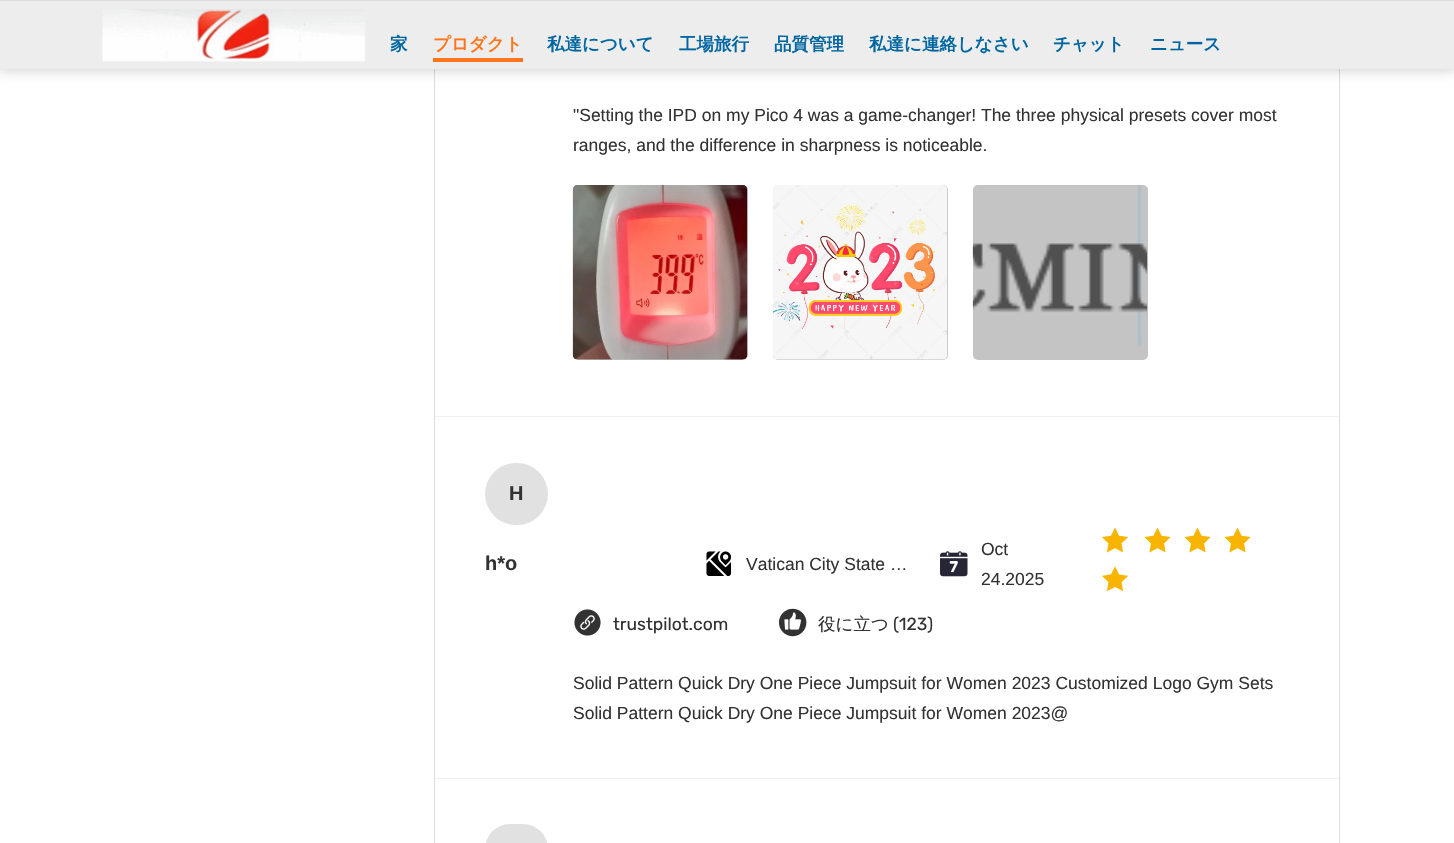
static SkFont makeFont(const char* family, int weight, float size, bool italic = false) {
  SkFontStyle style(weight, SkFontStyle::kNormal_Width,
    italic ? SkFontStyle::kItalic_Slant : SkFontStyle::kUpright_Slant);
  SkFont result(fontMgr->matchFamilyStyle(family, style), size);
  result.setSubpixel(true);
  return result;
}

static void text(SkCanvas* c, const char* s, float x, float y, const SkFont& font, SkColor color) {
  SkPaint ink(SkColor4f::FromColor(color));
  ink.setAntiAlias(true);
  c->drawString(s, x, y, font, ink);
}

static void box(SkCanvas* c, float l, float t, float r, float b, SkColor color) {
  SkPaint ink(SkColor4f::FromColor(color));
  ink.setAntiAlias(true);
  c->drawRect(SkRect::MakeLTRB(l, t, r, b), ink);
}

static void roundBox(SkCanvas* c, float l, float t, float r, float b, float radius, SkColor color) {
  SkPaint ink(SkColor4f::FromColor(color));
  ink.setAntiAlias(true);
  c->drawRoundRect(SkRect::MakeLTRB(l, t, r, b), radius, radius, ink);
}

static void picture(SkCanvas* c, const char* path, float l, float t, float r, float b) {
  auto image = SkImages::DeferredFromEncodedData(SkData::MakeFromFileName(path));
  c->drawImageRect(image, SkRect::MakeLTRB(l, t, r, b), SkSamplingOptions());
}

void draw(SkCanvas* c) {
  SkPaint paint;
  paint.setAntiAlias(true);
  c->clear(0xffffffff);
  paint.setStyle(SkPaint::kStroke_Style);
  paint.setStrokeWidth(1);
  paint.setColor(0xffdddddd);
  c->drawRect(SkRect::MakeLTRB(434.5f, -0.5f, 1339.5f, 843.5f), paint);
  paint.setStyle(SkPaint::kFill_Style);
  paint.setColor(0x33000000);
  paint.setMaskFilter(SkMaskFilter::MakeBlur(kNormal_SkBlurStyle, 6));
  c->drawRect(SkRect::MakeLTRB(-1, -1, 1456, 70), paint);
  paint.setMaskFilter(nullptr);
  box(c, 0, 1, 1454, 69, 0xffededed);
  box(c, 0, 0, 1454, 1, 0xffdedede);
  picture(c, "img_01.png", 102, 9, 366, 62);
  SkFont face1 = makeFont("WenQuanYi Zen Hei", 700, 17.5f);
  text(c, "家", 390, 50, face1, 0xff0066a1);
  box(c, 433, 58, 523, 62, 0xffff7519);
  text(c, "プロダクト", 433, 50, face1, 0xffff7519);
  text(c, "私達について", 547, 50, face1, 0xff0066a1);
  text(c, "工場旅行", 679, 50, face1, 0xff0066a1);
  text(c, "品質管理", 774, 50, face1, 0xff0066a1);
  text(c, "私達に連絡しなさい", 869, 50, face1, 0xff0066a1);
  text(c, "チャット", 1053, 50, face1, 0xff0066a1);
  text(c, "ニュース", 1150, 50, face1, 0xff0066a1);
  box(c, 435, 416, 1339, 417, 0xfff0f0f0);
  SkFont face2 = makeFont("Liberation Sans", 400, 17.5f);
  text(c, "\"Setting the IPD on my Pico 4 was a game-changer! The three physical presets cover most", 573, 121, face2, 0xff323232);
  text(c, "ranges, and the difference in sharpness is noticeable.", 573, 151, face2, 0xff323232);
  roundBox(c, 573, 185, 748, 360, 5, 0xffc4c4c4);
  picture(c, "img_02.png", 572, 185, 748, 360);
  roundBox(c, 773, 185, 948, 360, 5, 0xffc4c4c4);
  picture(c, "img_03.png", 772, 185, 948, 360);
  roundBox(c, 973, 185, 1148, 360, 5, 0xffc4c4c4);
  picture(c, "img_04.png", 972, 185, 1148, 347);
  box(c, 435, 778, 1339, 779, 0xfff0f0f0);
  roundBox(c, 485, 463, 548, 525, 31, 0xffe1e1e1);
  SkFont face3 = makeFont("Liberation Sans", 700, 20);
  text(c, "H", 509, 500, face3, 0xff323232);
  text(c, "h*o", 485, 570, face3, 0xff323232);
  picture(c, "img_05.png", 706, 551, 732, 576);
  text(c, "Vatican City State …", 746, 570, face2, 0xff323232);
  picture(c, "img_06.png", 940, 551, 968, 577);
  text(c, "Oct", 981, 555, face2, 0xff323232);
  text(c, "24.2025", 981, 585, face2, 0xff323232);
  picture(c, "img_07.png", 1102, 527, 1128, 553);
  picture(c, "img_08.png", 1144, 527, 1171, 553);
  picture(c, "img_08.png", 1184, 527, 1211, 553);
  picture(c, "img_08.png", 1224, 527, 1251, 553);
  picture(c, "img_09.png", 1102, 566, 1128, 592);
  picture(c, "img_10.png", 574, 609, 601, 636);
  SkFont face4 = makeFont("Rubik", 400, 17.5f);
  text(c, "trustpilot.com", 613, 630, face4, 0xff323232);
  picture(c, "img_11.png", 778, 608, 807, 637);
  SkFont face5 = makeFont("WenQuanYi Zen Hei", 500, 17.5f);
  text(c, "役に立つ", 818, 630, face5, 0xff323232);
  text(c, "(123)", 893, 630, face4, 0xff323232);
  text(c, "Solid Pattern Quick Dry One Piece Jumpsuit for Women 2023 Customized Logo Gym Sets", 573, 689, face2, 0xff323232);
  text(c, "Solid Pattern Quick Dry One Piece Jumpsuit for Women 2023@", 573, 719, face2, 0xff323232);
  roundBox(c, 485, 824, 548, 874, 31, 0xffe1e1e1);
}
